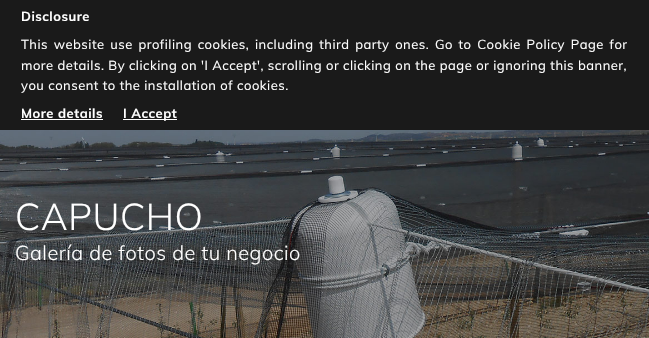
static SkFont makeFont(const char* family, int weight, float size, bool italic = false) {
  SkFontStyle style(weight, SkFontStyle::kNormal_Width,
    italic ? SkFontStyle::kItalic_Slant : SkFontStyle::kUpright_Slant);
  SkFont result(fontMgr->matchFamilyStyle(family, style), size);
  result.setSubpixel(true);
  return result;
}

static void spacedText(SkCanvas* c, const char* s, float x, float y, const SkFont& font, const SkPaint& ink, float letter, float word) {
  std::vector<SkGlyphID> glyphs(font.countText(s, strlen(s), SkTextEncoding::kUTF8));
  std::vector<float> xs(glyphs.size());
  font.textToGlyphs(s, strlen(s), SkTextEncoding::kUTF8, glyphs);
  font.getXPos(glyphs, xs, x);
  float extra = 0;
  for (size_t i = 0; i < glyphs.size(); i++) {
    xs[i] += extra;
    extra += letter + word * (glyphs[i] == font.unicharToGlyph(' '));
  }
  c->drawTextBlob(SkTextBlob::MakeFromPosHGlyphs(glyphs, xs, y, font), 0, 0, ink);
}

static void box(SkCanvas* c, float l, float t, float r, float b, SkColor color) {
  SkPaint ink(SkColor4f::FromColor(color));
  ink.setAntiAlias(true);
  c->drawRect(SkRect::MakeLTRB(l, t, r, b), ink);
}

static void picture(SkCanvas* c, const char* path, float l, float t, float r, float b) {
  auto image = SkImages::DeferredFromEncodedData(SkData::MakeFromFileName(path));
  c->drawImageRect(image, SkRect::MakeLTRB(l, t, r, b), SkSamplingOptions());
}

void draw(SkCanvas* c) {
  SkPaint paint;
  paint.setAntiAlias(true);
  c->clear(0xffffffff);
  box(c, 0, 0, 649, 130, 0xff1a1a1a);
  SkFont face1 = makeFont("Muli", 700, 13);
  paint.setColor(0xffffffff);
  spacedText(c, "Disclosure", 21, 21, face1, paint, 0.5f, 0);
  SkFont face2 = makeFont("Muli", 400, 13);
  spacedText(c, "This website use profiling cookies, including third party ones. Go to Cookie Policy Page for", 21, 49, face2, paint, 0.5f, 1.8f);
  spacedText(c, "more details. By clicking on 'I Accept', scrolling or clicking on the page or ignoring this banner,", 21, 70, face2, paint, 0.5f, 0);
  spacedText(c, "you consent to the installation of cookies.", 21, 90, face2, paint, 0.5f, 0);
  spacedText(c, "More details", 21, 118, face1, paint, 0.5f, 0);
  box(c, 21, 119, 103, 120, 0xffffffff);
  box(c, 123, 119, 177, 120, 0xffffffff);
  spacedText(c, "I Accept", 123, 118, face1, paint, 0.5f, 0);
  picture(c, "img_01.png", 0, 130, 649, 338);
  SkFont face3 = makeFont("Muli", 300, 37);
  spacedText(c, "CAPUCHO", 15, 230, face3, paint, 0.5f, 0);
  SkFont face4 = makeFont("Muli", 300, 20);
  spacedText(c, "Galería de fotos de tu negocio", 15, 260, face4, paint, 0.5f, 0);
}
